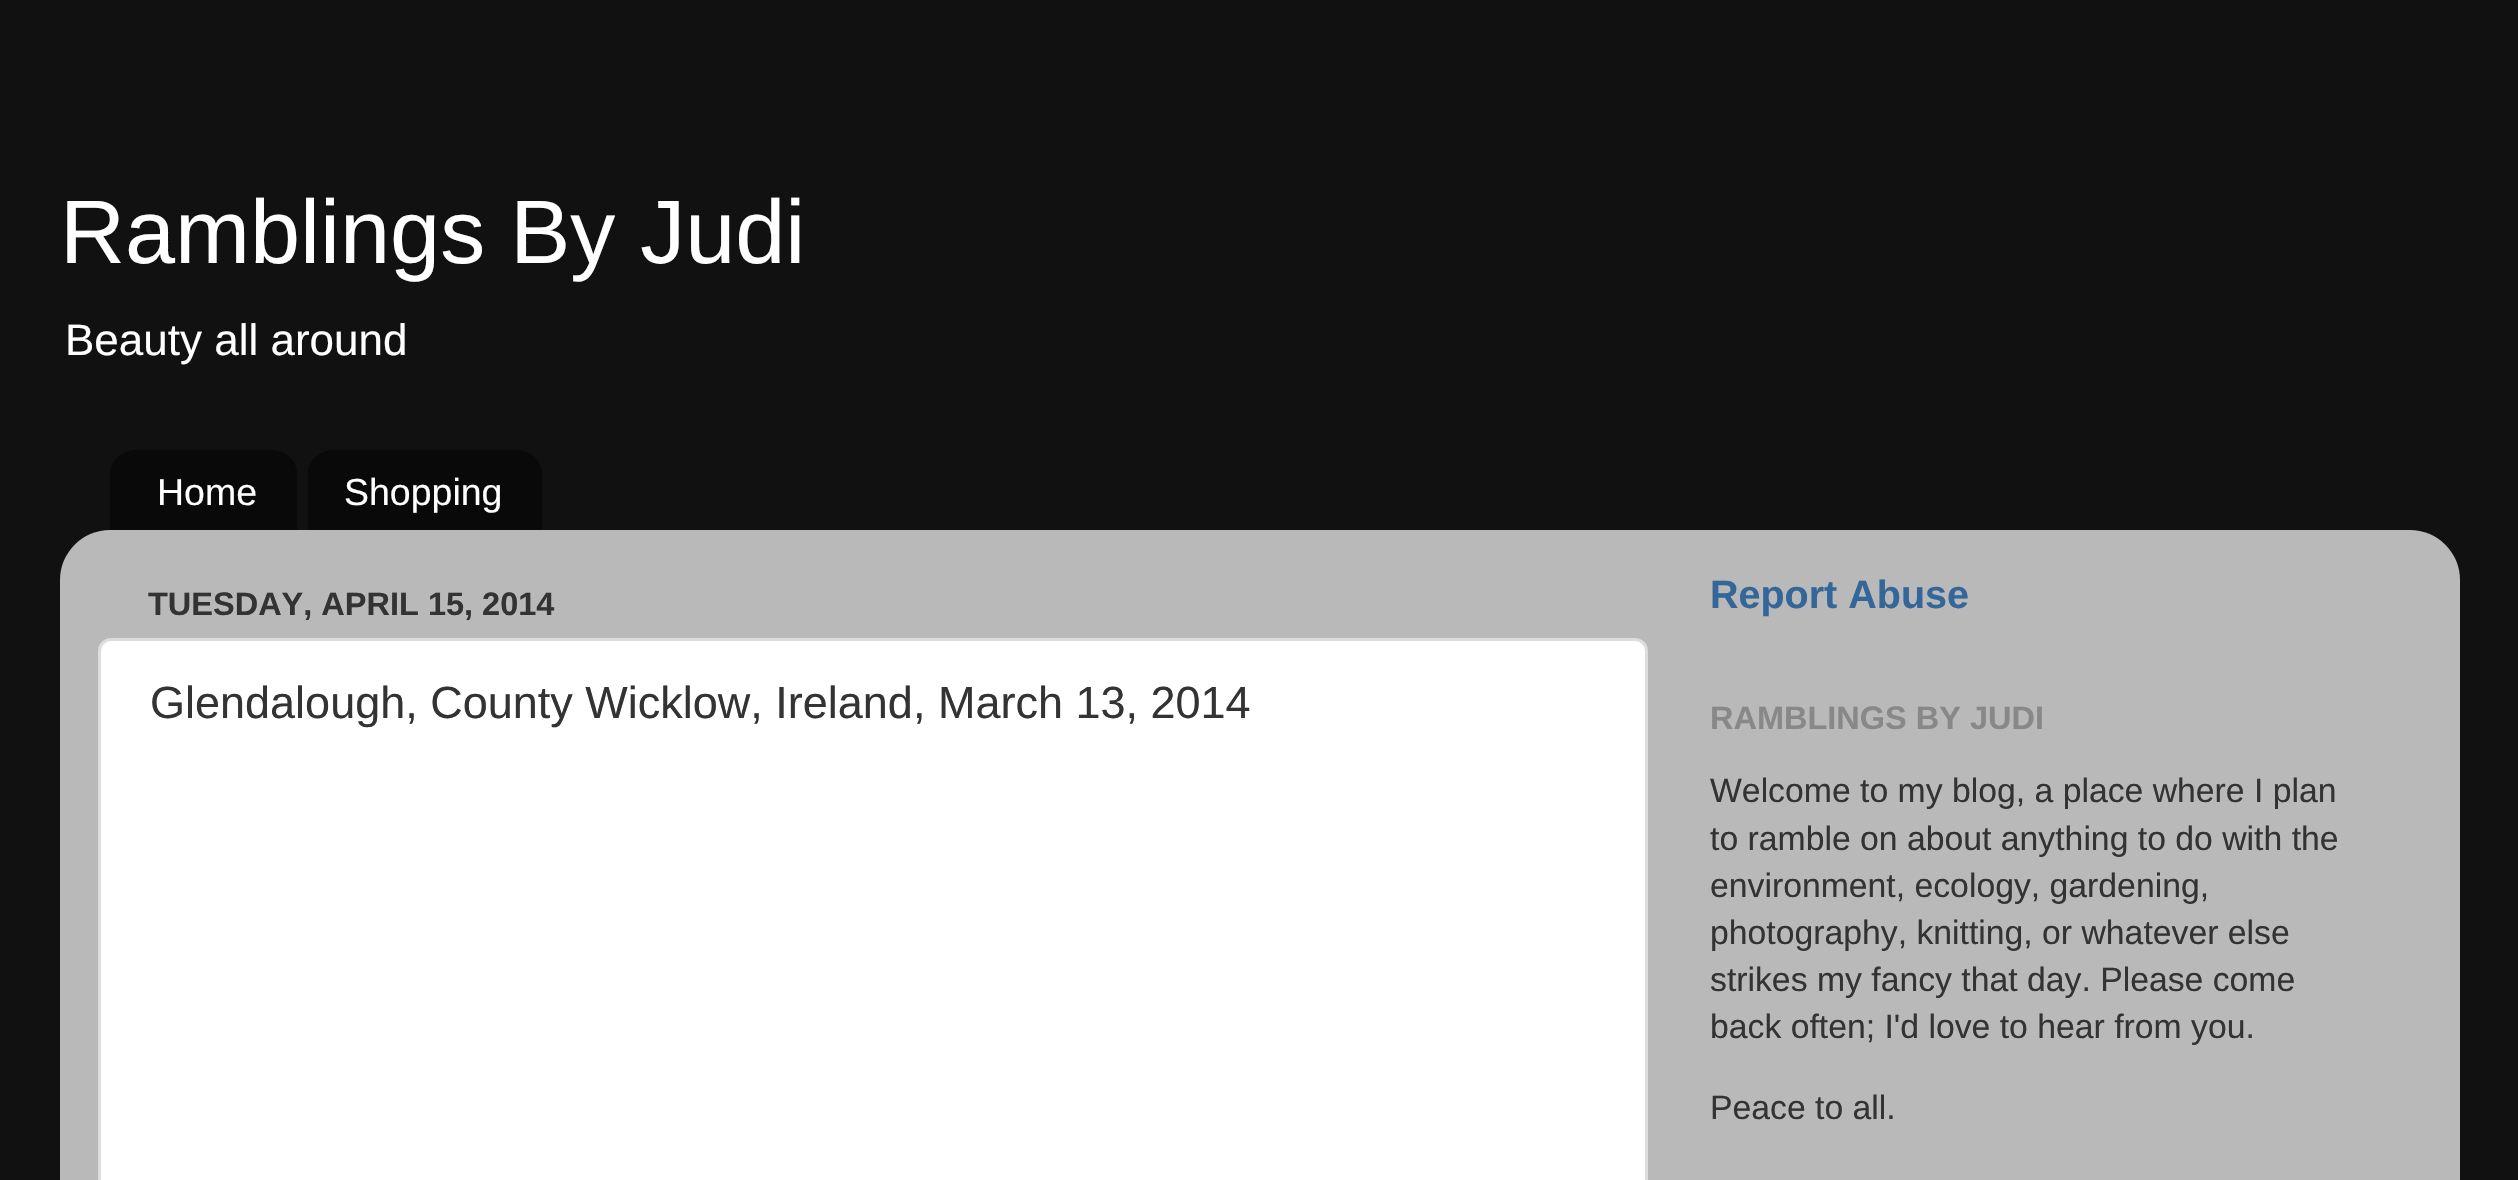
static SkFont makeFont(const char* family, int weight, float size, bool italic = false) {
  SkFontStyle style(weight, SkFontStyle::kNormal_Width,
    italic ? SkFontStyle::kItalic_Slant : SkFontStyle::kUpright_Slant);
  SkFont result(fontMgr->matchFamilyStyle(family, style), size);
  result.setSubpixel(true);
  return result;
}

static void text(SkCanvas* c, const char* s, float x, float y, const SkFont& font, SkColor color) {
  SkPaint ink(SkColor4f::FromColor(color));
  ink.setAntiAlias(true);
  c->drawString(s, x, y, font, ink);
}

static void picture(SkCanvas* c, const char* path, float l, float t, float r, float b) {
  auto image = SkImages::DeferredFromEncodedData(SkData::MakeFromFileName(path));
  c->drawImageRect(image, SkRect::MakeLTRB(l, t, r, b), SkSamplingOptions());
}

void draw(SkCanvas* c) {
  SkPaint paint;
  paint.setAntiAlias(true);
  c->clear(0xff111111);
  SkFont face1 = makeFont("Liberation Sans", 400, 90);
  text(c, "Ramblings By Judi", 60, 263, face1, 0xffffffff);
  SkFont face2 = makeFont("Liberation Sans", 400, 44);
  text(c, "Beauty all around", 65, 355, face2, 0xffffffff);
  picture(c, "img_01.png", 110, 450, 297, 530);
  SkFont face3 = makeFont("Liberation Sans", 400, 37.5f);
  text(c, "Home", 157, 505, face3, 0xffffffff);
  picture(c, "img_02.png", 308, 450, 542, 530);
  text(c, "Shopping", 344, 505, face3, 0xffffffff);
  picture(c, "img_03.png", 60, 530, 2460, 1180);
  SkFont face4 = makeFont("Liberation Sans", 700, 32.5f);
  text(c, "TUESDAY, APRIL 15, 2014", 148, 615, face4, 0xff333333);
  paint.setColor(0xffffffff);
  c->drawRoundRect(SkRect::MakeLTRB(99.5f, 639.5f, 1646.5f, 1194.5f), 11.5f, 11.5f, paint);
  paint.setStyle(SkPaint::kStroke_Style);
  paint.setStrokeWidth(3);
  paint.setColor(0xffdddddd);
  c->drawRoundRect(SkRect::MakeLTRB(99.5f, 639.5f, 1646.5f, 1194.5f), 11.5f, 11.5f, paint);
  SkFont face5 = makeFont("Liberation Sans", 400, 45);
  text(c, "Glendalough, County Wicklow, Ireland, March 13, 2014", 150, 718, face5, 0xff333333);
  SkFont face6 = makeFont("Liberation Sans", 700, 39.5f);
  text(c, "Report Abuse", 1710, 608, face6, 0xff336699);
  text(c, "RAMBLINGS BY JUDI", 1710, 729, face4, 0xff888888);
  SkFont face7 = makeFont("Liberation Sans", 400, 33.75f);
  text(c, "Welcome to my blog, a place where I plan", 1710, 802, face7, 0xff333333);
  text(c, "to ramble on about anything to do with the", 1710, 850, face7, 0xff333333);
  text(c, "environment, ecology, gardening,", 1710, 897, face7, 0xff333333);
  text(c, "photography, knitting, or whatever else", 1710, 944, face7, 0xff333333);
  text(c, "strikes my fancy that day. Please come", 1710, 991, face7, 0xff333333);
  text(c, "back often; I'd love to hear from you.", 1710, 1038, face7, 0xff333333);
  text(c, "Peace to all.", 1710, 1119, face7, 0xff333333);
}
